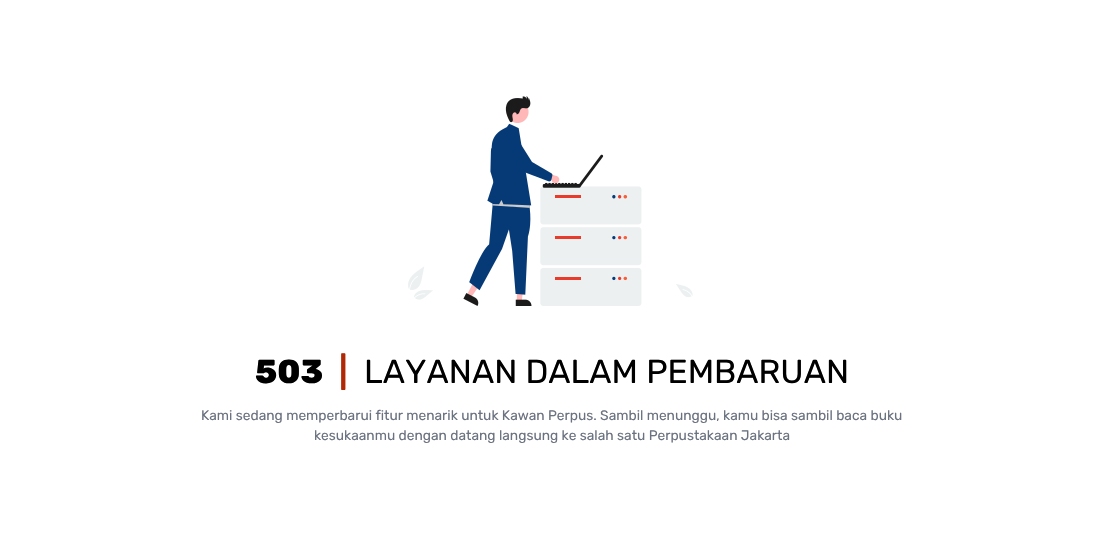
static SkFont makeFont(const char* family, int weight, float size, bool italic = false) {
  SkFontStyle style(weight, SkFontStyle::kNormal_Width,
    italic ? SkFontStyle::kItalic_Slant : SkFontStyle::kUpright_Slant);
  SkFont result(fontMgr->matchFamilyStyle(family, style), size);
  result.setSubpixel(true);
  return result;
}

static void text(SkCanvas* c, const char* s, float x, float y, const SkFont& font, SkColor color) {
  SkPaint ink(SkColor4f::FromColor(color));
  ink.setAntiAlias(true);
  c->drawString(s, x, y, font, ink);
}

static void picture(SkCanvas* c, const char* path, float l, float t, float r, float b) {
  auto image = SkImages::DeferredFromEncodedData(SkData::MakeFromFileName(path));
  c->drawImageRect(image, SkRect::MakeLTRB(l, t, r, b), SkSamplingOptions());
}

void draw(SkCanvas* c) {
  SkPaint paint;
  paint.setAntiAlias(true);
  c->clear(0xffffffff);
  picture(c, "img_01.png", 408, 96, 693, 306);
  SkFont face1 = makeFont("Rubik", 800, 33.25f);
  text(c, "503", 255, 383, face1, 0xff000000);
  SkFont face2 = makeFont("Rubik", 600, 33.25f);
  text(c, "|", 339, 383, face2, 0xffb12806);
  SkFont face3 = makeFont("Rubik", 400, 33.25f);
  text(c, "LAYANAN DALAM PEMBARUAN", 364, 383, face3, 0xff000000);
  SkFont face4 = makeFont("Rubik", 400, 13.75f);
  text(c, "Kami sedang memperbarui fitur menarik untuk Kawan Perpus. Sambil menunggu, kamu bisa sambil baca buku", 201, 420, face4, 0xff6b7280);
  text(c, "kesukaanmu dengan datang langsung ke salah satu Perpustakaan Jakarta", 314, 440, face4, 0xff6b7280);
}
